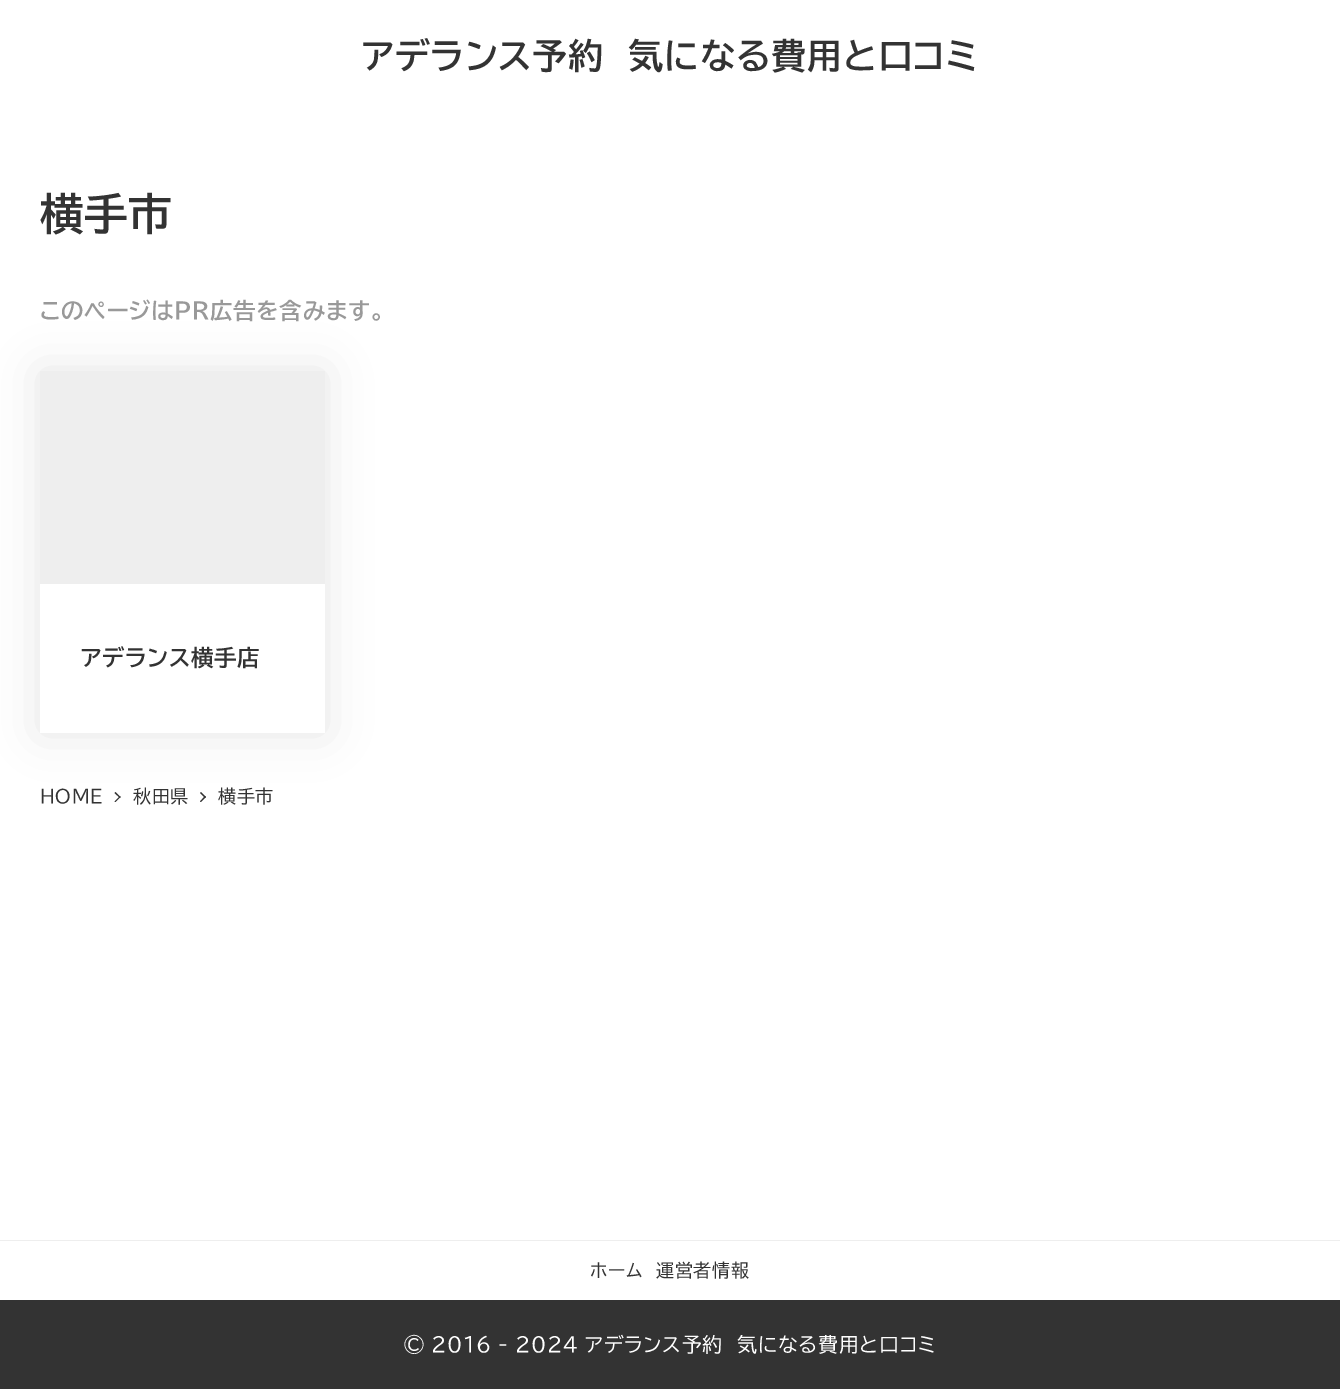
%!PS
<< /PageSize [1340 1389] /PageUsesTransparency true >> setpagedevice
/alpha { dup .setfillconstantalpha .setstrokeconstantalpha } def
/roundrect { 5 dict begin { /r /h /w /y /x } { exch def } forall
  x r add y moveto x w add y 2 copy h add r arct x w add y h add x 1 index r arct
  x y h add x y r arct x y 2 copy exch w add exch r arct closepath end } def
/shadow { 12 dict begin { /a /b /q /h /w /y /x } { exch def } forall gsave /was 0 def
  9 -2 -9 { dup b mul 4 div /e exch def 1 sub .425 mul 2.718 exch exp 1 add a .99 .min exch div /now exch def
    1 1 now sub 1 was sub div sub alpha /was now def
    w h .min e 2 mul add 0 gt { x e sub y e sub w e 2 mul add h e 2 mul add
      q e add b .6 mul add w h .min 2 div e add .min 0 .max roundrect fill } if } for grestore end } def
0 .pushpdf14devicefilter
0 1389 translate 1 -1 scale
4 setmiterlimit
1 setgray
0 0 1340 1389 rectfill
/BIZUDPGothic-Bold [35.25 0 0 -35.25 0 0] selectfont
0.2 setgray
362 69 moveto 0.7 0 (アデランス予約　気になる費用と口コミ) ashow
/BIZUDPGothic-Bold [43.5 0 0 -43.5 0 0] selectfont
40 230 moveto 0.7 0 (横手市) ashow
/BIZUDPGothic-Bold [22.5 0 0 -22.5 0 0] selectfont
0.6 setgray
40 319 moveto 0.7 0 (このページはPR広告を含みます。) ashow
gsave
newpath 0 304 moveto 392 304 lineto 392 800 lineto 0 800 lineto closepath 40 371 moveto 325 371 lineto 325 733 lineto 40 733 lineto closepath eoclip newpath
0 setgray
40 371 285 362 0 22 0.1 shadow
grestore
0.933 setgray
40 371 285 213 rectfill
0.2 setgray
81 666 moveto 0.7 0 (アデランス横手店) ashow
/BIZUDPGothic-Regular [18 0 0 -18 0 0] selectfont
40 803 moveto 0.7 0 (HOME) ashow
newpath 115.5 792 moveto 120.5 797 lineto 120 798 lineto 114.5 793 lineto closepath fill
newpath 120 796 moveto 120.5 797 lineto 115.5 802 lineto 114.5 801.5 lineto closepath fill
133 803 moveto 0.7 0 (秋田県) ashow
newpath 201 792 moveto 206 797 lineto 205 798 lineto 200 793 lineto closepath fill
newpath 205 796 moveto 206 797 lineto 201 802 lineto 200 801.5 lineto closepath fill
218 803 moveto 0.7 0 (横手市) ashow
0.933 setgray
0 1240 1340 1 rectfill
0.2 setgray
590 1277 moveto 0.7 0 (ホーム) ashow
656 1277 moveto 0.7 0 (運営者情報) ashow
0 1300 1340 89 rectfill
/BIZUDPGothic-Regular [20 0 0 -20 0 0] selectfont
1 setgray
404 1352 moveto 0.7 0 (©) ashow
431 1352 moveto 0.7 0 (2016) ashow
498 1352 moveto 0.7 0 (-) ashow
515 1352 moveto 0.7 0 (2024) ashow
585 1352 moveto 0.7 0 (アデランス予約　気になる費用と口コミ) ashow
.poppdf14devicefilter showpage
